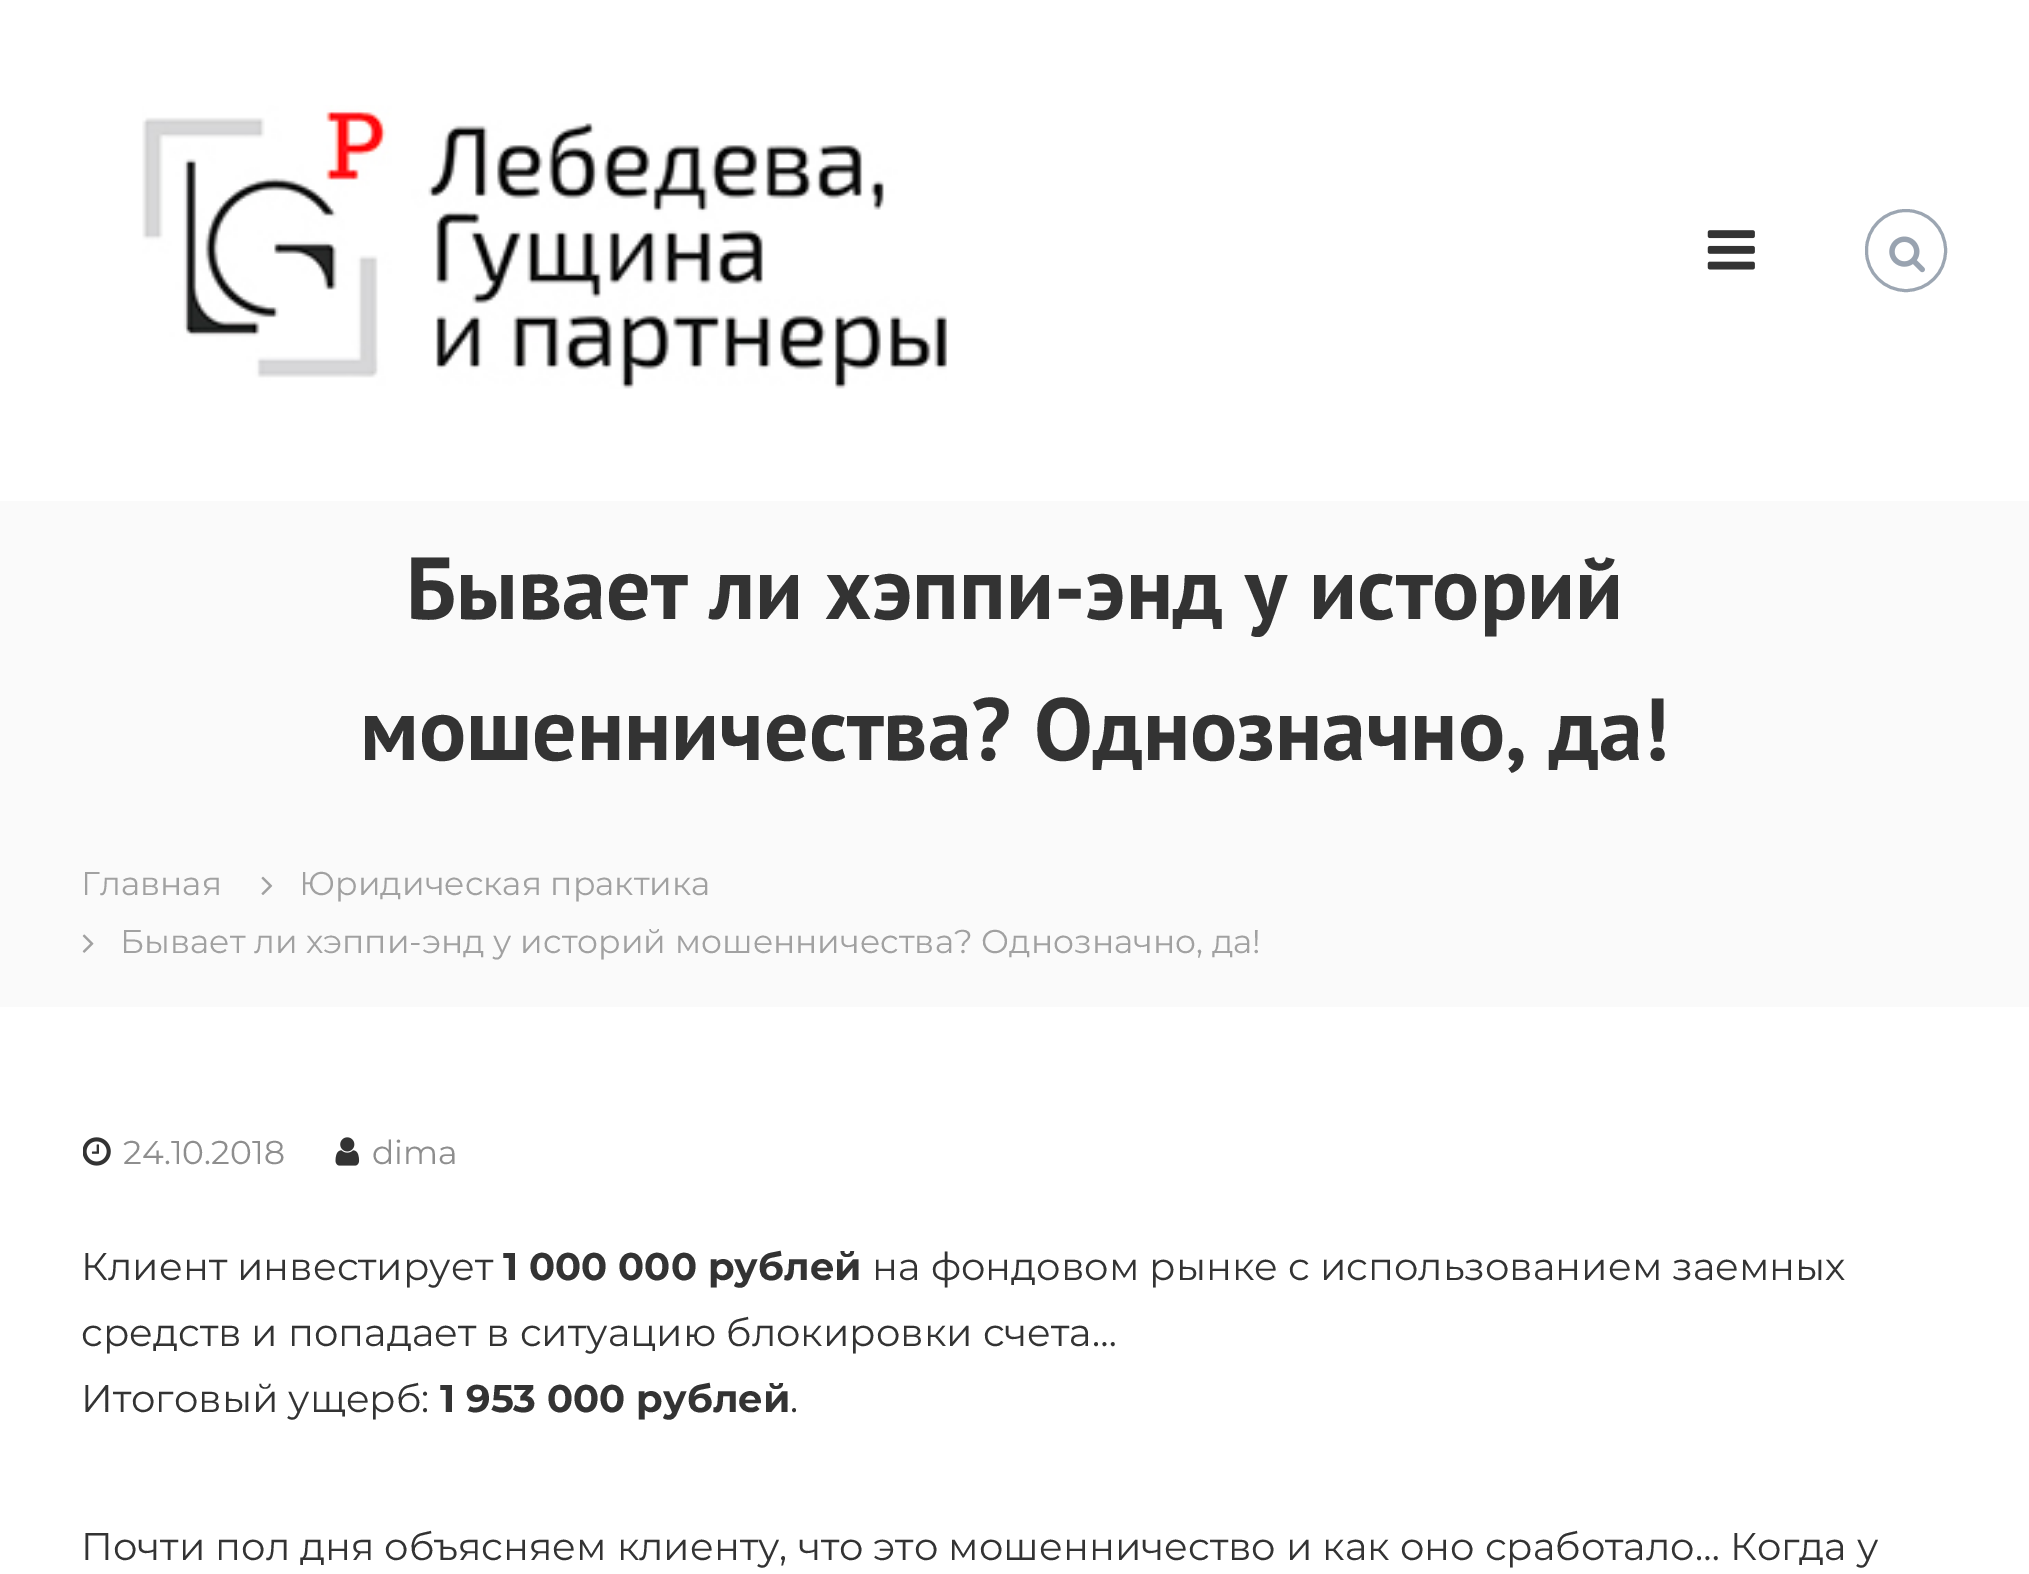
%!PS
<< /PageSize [2029 1574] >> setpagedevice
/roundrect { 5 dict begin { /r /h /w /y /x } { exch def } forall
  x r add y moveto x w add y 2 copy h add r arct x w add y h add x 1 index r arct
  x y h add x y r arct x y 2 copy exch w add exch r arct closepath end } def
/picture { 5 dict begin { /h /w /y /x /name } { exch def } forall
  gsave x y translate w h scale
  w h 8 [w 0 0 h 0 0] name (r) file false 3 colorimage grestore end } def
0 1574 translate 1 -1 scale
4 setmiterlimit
1 setgray
0 0 2029 1574 rectfill
(img1.rgb) 142 105 805 284 picture
(img2.rgb) 1707 230 48 40 picture
0.612 0.651 0.698 setrgbcolor
3 setlinewidth
1866.5 210.5 79 80 39.5 roundrect stroke
(img3.rgb) 1889 236 36 37 picture
0.98 setgray
0 501 2029 506 rectfill
/PTSans-Bold [88 0 0 -88 0 0] selectfont
0.2 setgray
406 619 moveto (Бывает ли хэппи-энд у историй) show
360 760 moveto (мошенничества? Однозначно, да!) show
/Montserrat-Regular [33 0 0 -33 0 0] selectfont
0.631 setgray
81 895 moveto (Главная) show
(img4.rgb) 261 876 12 19 picture
299 895 moveto (Юридическая практика) show
(img5.rgb) 82 934 12 19 picture
120 953 moveto (Бывает ли хэппи-энд у историй мошенничества? Однозначно, да!) show
(img6.rgb) 83 1137 28 29 picture
0.557 setgray
123 1164 moveto (24.10.2018) show
(img7.rgb) 335 1137 25 29 picture
372 1164 moveto (dima) show
/Montserrat-Regular [38.5 0 0 -38.5 0 0] selectfont
0.2 setgray
81 1280 moveto (Клиент инвестирует) show
/Montserrat-Bold [38.5 0 0 -38.5 0 0] selectfont
503 1280 moveto (1 000 000 рублей) show
/Montserrat-Regular [38.5 0 0 -38.5 0 0] selectfont
872 1280 moveto (на фондовом рынке с использованием заемных) show
81 1346 moveto (средств и попадает в ситуацию блокировки счета…) show
81 1412 moveto (Итоговый ущерб:) show
/Montserrat-Bold [38.5 0 0 -38.5 0 0] selectfont
440 1412 moveto (1 953 000 рублей) show
/Montserrat-Regular [38.5 0 0 -38.5 0 0] selectfont
790 1412 moveto (.) show
81 1560 moveto (Почти пол дня объясняем клиенту, что это мошенничество и как оно сработало… Когда у) show
showpage
